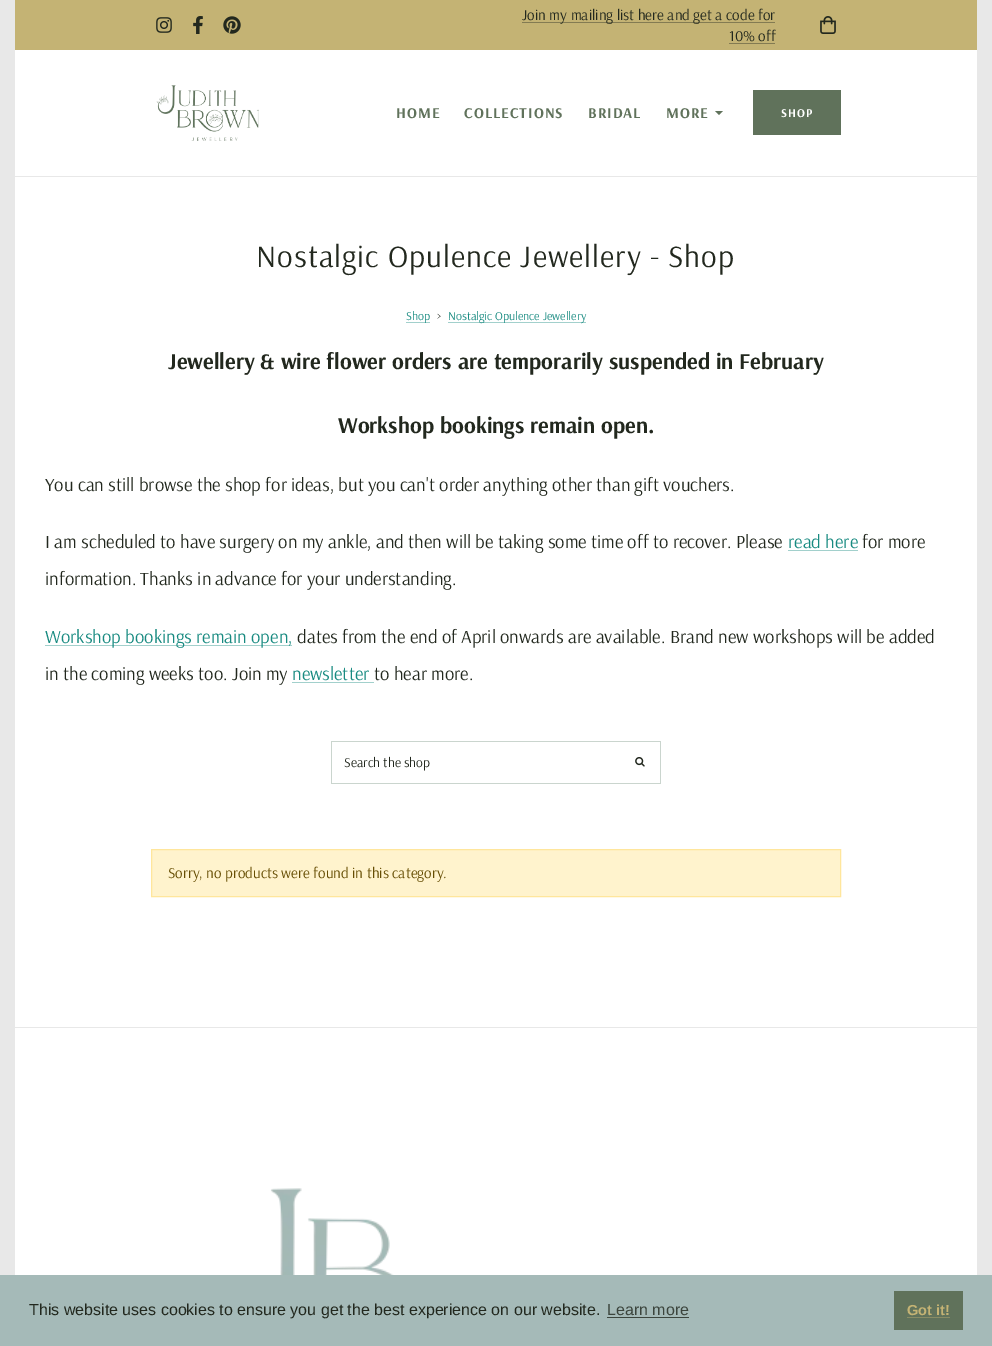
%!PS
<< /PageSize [992 1346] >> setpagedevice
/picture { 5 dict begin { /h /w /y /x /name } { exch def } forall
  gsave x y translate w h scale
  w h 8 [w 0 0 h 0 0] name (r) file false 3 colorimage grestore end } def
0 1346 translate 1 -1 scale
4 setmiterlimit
0.91 setgray
0 0 992 1346 rectfill
1 setgray
15 50 962 126 rectfill
0.769 0.702 0.455 setrgbcolor
15 0 962 50 rectfill
(img1.rgb) 156 17 16 16 picture
(img2.rgb) 193 16 10 18 picture
(img3.rgb) 223 16 18 18 picture
0.514 0.482 0.322 setrgbcolor
522 22 253 1 rectfill
/Arsenal-Regular [15 0 0 -15 0 0] selectfont
0.133 0.157 0.118 setrgbcolor
522 20 moveto (Join my mailing list here and get a code for) show
729 41 moveto (10% off) show
0.514 0.482 0.322 setrgbcolor
729 43 46 1 rectfill
(img4.rgb) 820 16 16 18 picture
(img5.rgb) 156 85 103 56 picture
/Arsenal-Bold [15 0 0 -15 0 0] selectfont
0.376 0.447 0.357 setrgbcolor
396 118 moveto 1 0 (HOME) ashow
464 118 moveto 1 0 (COLLECTIONS) ashow
588 118 moveto 1 0 (BRIDAL) ashow
666 118 moveto 1 0 (MORE) ashow
newpath 715 111 moveto 723 111 lineto 719 115 lineto closepath fill
753 90 88 45 rectfill
/Arsenal-Bold [12 0 0 -12 0 0] selectfont
1 setgray
781 117 moveto 1 0 (SHOP) ashow
15 177 962 850 rectfill
/Arsenal-Regular [31.1 0 0 -31.1 0 0] selectfont
0.133 0.157 0.118 setrgbcolor
256 267 moveto 1 0 (Nostalgic Opulence Jewellery - Shop) ashow
0.635 0.816 0.8 setrgbcolor
406 322 24 1 rectfill
/Arsenal-Regular [12 0 0 -12 0 0] selectfont
0.09 0.541 0.502 setrgbcolor
406 320 moveto (Shop) show
0.133 0.157 0.118 setrgbcolor
437 320 moveto (>) show
0.635 0.816 0.8 setrgbcolor
448 322 138 1 rectfill
0.09 0.541 0.502 setrgbcolor
448 320 moveto (Nostalgic Opulence Jewellery) show
/Arsenal-Bold [22.5 0 0 -22.5 0 0] selectfont
0.133 0.157 0.118 setrgbcolor
168 369 moveto (Jewellery & wire flower orders are temporarily suspended in February) show
338 433 moveto (Workshop bookings remain open.) show
/Arsenal-Regular [18.65 0 0 -18.65 0 0] selectfont
45 491 moveto (You can still browse the shop for ideas, but you can't order anything other than gift vouchers.) show
45 548 moveto (I am scheduled to have surgery on my ankle, and then will be taking some time off to recover. Please) show
0.09 0.541 0.502 setrgbcolor
788 548 moveto (read here) show
0.635 0.816 0.8 setrgbcolor
788 550 70 1 rectfill
0.133 0.157 0.118 setrgbcolor
862 548 moveto (for more) show
45 585 moveto (information. Thanks in advance for your understanding.) show
0.635 0.816 0.8 setrgbcolor
45 645 247 1 rectfill
0.09 0.541 0.502 setrgbcolor
45 643 moveto (Workshop bookings remain open,) show
0.133 0.157 0.118 setrgbcolor
297 643 moveto (dates from the end of April onwards are available. Brand new workshops will be added) show
45 680 moveto (in the coming weeks too. Join my) show
0.635 0.816 0.8 setrgbcolor
292 682 82 1 rectfill
0.09 0.541 0.502 setrgbcolor
292 680 moveto (newsletter) show
0.133 0.157 0.118 setrgbcolor
374 680 moveto (to hear more.) show
0.792 0.835 0.808 setrgbcolor
331 741 330 1 rectfill
331 783 290 1 rectfill
331 741 1 43 rectfill
/Arsenal-Regular [13.5 0 0 -13.5 0 0] selectfont
0.133 0.157 0.118 setrgbcolor
344 767 moveto (Search the shop) show
0.792 0.835 0.808 setrgbcolor
660 741 1 43 rectfill
621 783 40 1 rectfill
(img6.rgb) 635 757 10 10 picture
1 0.953 0.804 setrgbcolor
newpath 151.5 849.5 moveto 840.5 849.5 lineto 840.5 896.5 lineto 151.5 896.5 lineto closepath gsave fill grestore
1 0.902 0.612 setrgbcolor
stroke
/Arsenal-Regular [15 0 0 -15 0 0] selectfont
0.4 0.302 0.012 setrgbcolor
168 878 moveto (Sorry, no products were found in this category.) show
1 setgray
15 1028 962 247 rectfill
(img7.rgb) 270 1188 124 87 picture
0.647 0.729 0.722 setrgbcolor
0 1275 992 71 rectfill
/LiberationSans-Regular [16 0 0 -16 0 0] selectfont
0.133 0.157 0.118 setrgbcolor
29 1315 moveto (This website uses cookies to ensure you get the best experience on our website.) show
0.235 0.271 0.239 setrgbcolor
607 1315 moveto (Learn more) show
607 1317 82 1 rectfill
0.376 0.447 0.357 setrgbcolor
894 1291 69 39 rectfill
/LiberationSans-Bold [14.5 0 0 -14.5 0 0] selectfont
0.769 0.702 0.455 setrgbcolor
907 1315 moveto (Got it!) show
0.533 0.549 0.396 setrgbcolor
907 1317 43 1 rectfill
showpage
